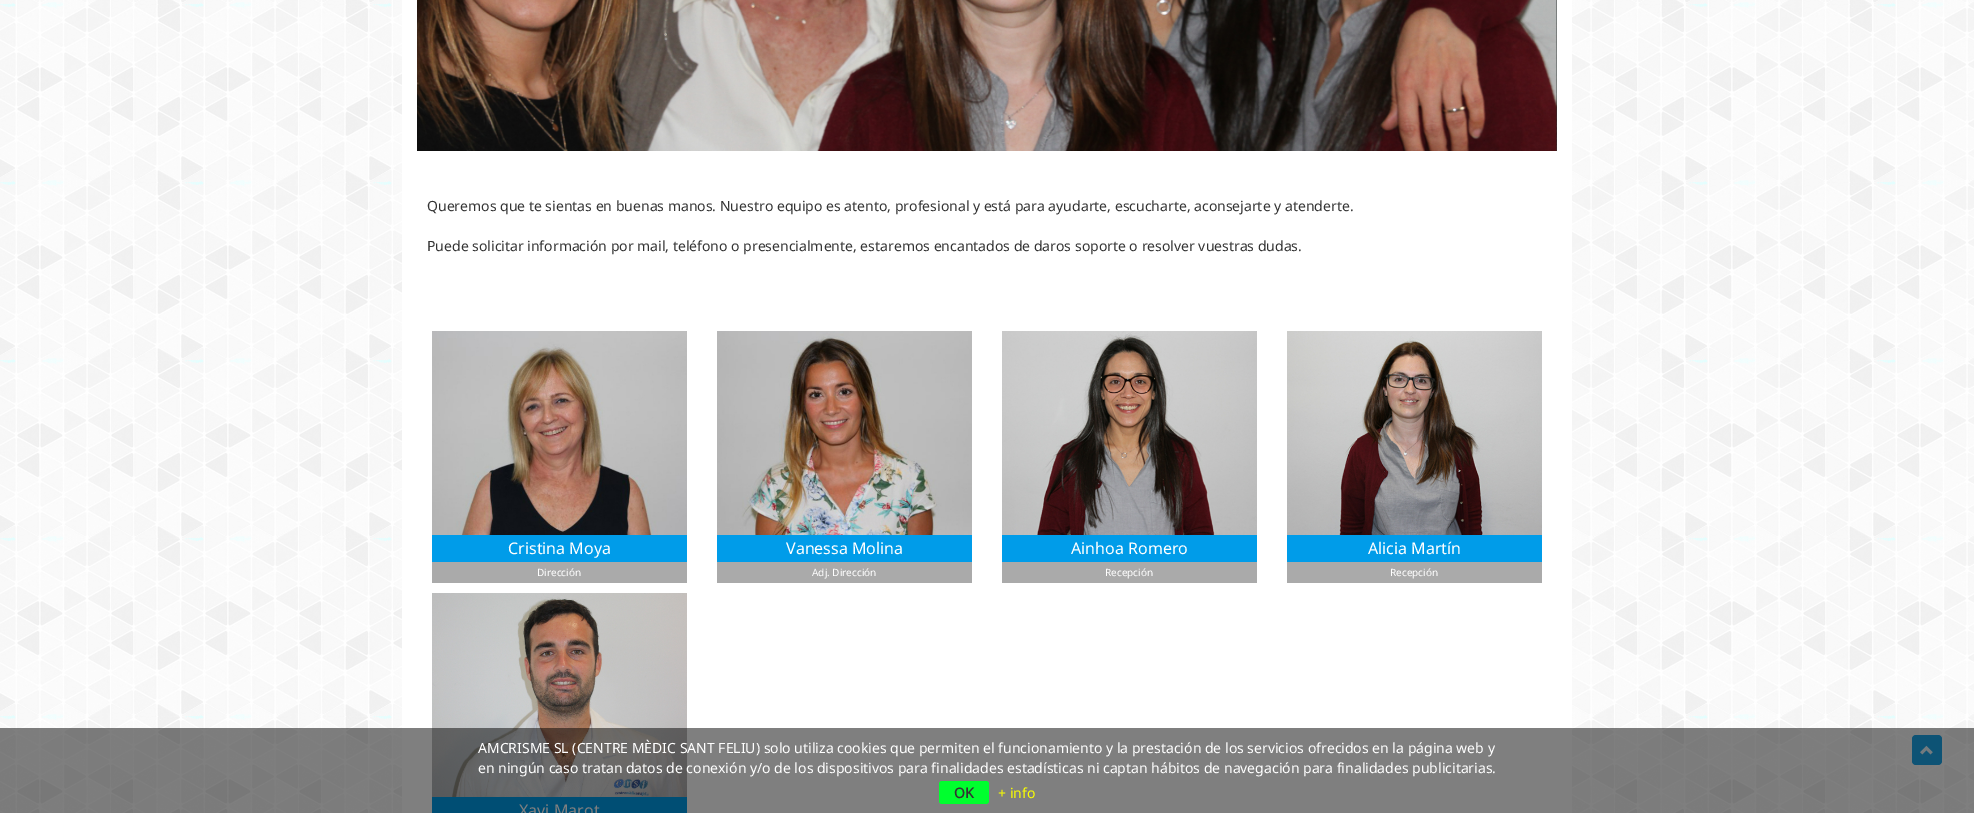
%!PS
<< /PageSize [1974 813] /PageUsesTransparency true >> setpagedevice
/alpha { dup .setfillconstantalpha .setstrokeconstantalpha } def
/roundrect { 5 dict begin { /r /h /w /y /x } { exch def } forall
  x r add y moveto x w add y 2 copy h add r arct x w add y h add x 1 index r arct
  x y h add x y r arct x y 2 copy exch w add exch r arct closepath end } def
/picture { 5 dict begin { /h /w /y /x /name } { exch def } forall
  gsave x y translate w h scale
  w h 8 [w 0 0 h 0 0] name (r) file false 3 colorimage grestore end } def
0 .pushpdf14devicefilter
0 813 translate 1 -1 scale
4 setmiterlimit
1 setgray
0 0 1974 813 rectfill
(img1.rgb) 0 0 1974 813 picture
402 0 1170 813 rectfill
(img2.rgb) 417 0 1140 151 picture
/NotoSans-Regular [14 0 0 -14 0 0] selectfont
0.2 setgray
427 211 moveto (Queremos que te sientas en buenas manos. Nuestro equipo es atento, profesional y está para ayudarte, escucharte, aconsejarte y atenderte.) show
427 251 moveto (Puede solicitar información por mail, teléfono o presencialmente, estaremos encantados de daros soporte o resolver vuestras dudas.) show
(img3.rgb) 432 331 255 204 picture
0 0.612 0.914 setrgbcolor
432 535 255 27 rectfill
/NotoSans-Regular [16 0 0 -16 0 0] selectfont
1 setgray
508 554 moveto (Cristina Moya) show
0.667 setgray
432 562 255 21 rectfill
/NotoSans-Regular [10 0 0 -10 0 0] selectfont
1 setgray
537 576 moveto (Dirección) show
(img4.rgb) 717 331 255 204 picture
0 0.612 0.914 setrgbcolor
717 535 255 27 rectfill
/NotoSans-Regular [16 0 0 -16 0 0] selectfont
1 setgray
786 554 moveto (Vanessa Molina) show
0.667 setgray
717 562 255 21 rectfill
/NotoSans-Regular [10 0 0 -10 0 0] selectfont
1 setgray
812 576 moveto (Adj. Dirección) show
(img5.rgb) 1002 331 255 204 picture
0 0.612 0.914 setrgbcolor
1002 535 255 27 rectfill
/NotoSans-Regular [16 0 0 -16 0 0] selectfont
1 setgray
1071 554 moveto (Ainhoa Romero) show
0.667 setgray
1002 562 255 21 rectfill
/NotoSans-Regular [10 0 0 -10 0 0] selectfont
1 setgray
1105 576 moveto (Recepción) show
(img6.rgb) 1287 331 255 204 picture
0 0.612 0.914 setrgbcolor
1287 535 255 27 rectfill
/NotoSans-Regular [16 0 0 -16 0 0] selectfont
1 setgray
1368 554 moveto (Alicia Martín) show
0.667 setgray
1287 562 255 21 rectfill
/NotoSans-Regular [10 0 0 -10 0 0] selectfont
1 setgray
1390 576 moveto (Recepción) show
(img7.rgb) 432 593 255 204 picture
0 0.612 0.914 setrgbcolor
432 797 255 16 rectfill
/NotoSans-Regular [16 0 0 -16 0 0] selectfont
1 setgray
519 816 moveto (Xavi Marot) show
0.89 alpha
0 0.612 0.914 setrgbcolor
1912 735 30 30 4 roundrect fill
1 alpha
(img8.rgb) 1920 745 13 10 picture
0.5 alpha
0 setgray
0 728 1974 85 rectfill
/NotoSans-Regular [14 0 0 -14 0 0] selectfont
1 alpha
1 setgray
478 753 moveto (AMCRISME SL \(CENTRE MÈDIC SANT FELIU\) solo utiliza cookies que permiten el funcionamiento y la prestación de los servicios ofrecidos en la página web y) show
478 773 moveto (en ningún caso tratan datos de conexión y/o de los dispositivos para finalidades estadísticas ni captan hábitos de navegación para finalidades publicitarias.) show
0 1 0.18 setrgbcolor
939 781 50 23 3 roundrect fill
/NotoSans-Bold [14 0 0 -14 0 0] selectfont
0.2 setgray
954 798 moveto (OK) show
/NotoSans-Regular [14 0 0 -14 0 0] selectfont
0.98 1 0 setrgbcolor
998 798 moveto (+ info) show
.poppdf14devicefilter showpage
